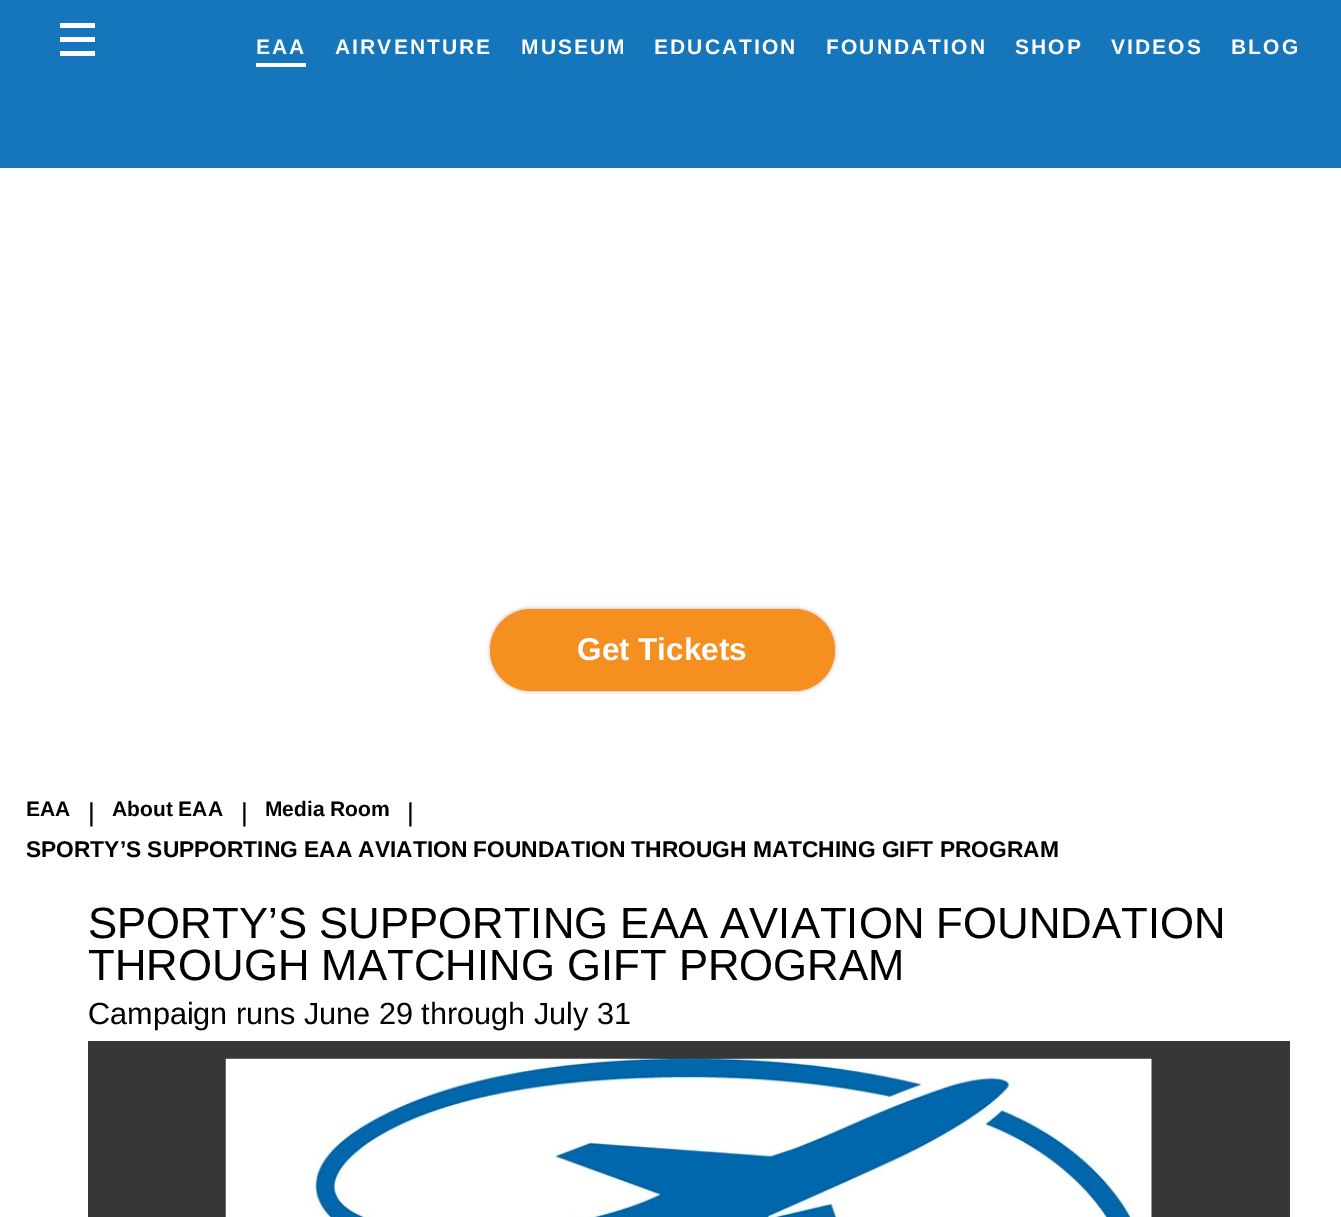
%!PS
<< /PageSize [1341 1217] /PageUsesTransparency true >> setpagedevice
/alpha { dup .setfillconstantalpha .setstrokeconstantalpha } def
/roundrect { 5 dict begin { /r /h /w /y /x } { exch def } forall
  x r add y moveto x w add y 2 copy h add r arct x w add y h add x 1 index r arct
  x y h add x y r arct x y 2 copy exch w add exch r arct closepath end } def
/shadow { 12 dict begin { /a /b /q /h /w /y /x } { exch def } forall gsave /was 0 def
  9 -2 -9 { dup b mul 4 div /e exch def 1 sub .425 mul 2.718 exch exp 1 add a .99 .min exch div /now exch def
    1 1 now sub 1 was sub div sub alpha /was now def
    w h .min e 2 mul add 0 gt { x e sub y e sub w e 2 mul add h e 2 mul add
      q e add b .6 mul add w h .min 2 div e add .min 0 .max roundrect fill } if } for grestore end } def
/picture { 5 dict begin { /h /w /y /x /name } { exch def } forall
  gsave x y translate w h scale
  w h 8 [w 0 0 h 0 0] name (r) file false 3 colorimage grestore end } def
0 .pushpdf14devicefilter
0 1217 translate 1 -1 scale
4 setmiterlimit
1 setgray
0 0 1341 1217 rectfill
0.086 0.463 0.737 setrgbcolor
0 0 1341 168 rectfill
1 setgray
60 23 35 5 rectfill
60 37 35 5 rectfill
60 51 35 5 rectfill
/LiberationSans-Bold [21 0 0 -21 0 0] selectfont
256 54 moveto 2.1 0 (EAA) ashow
256 63 50 4 rectfill
335 54 moveto 2.1 0 (AIRVENTURE) ashow
521 54 moveto 2.1 0 (MUSEUM) ashow
654 54 moveto 2.1 0 (EDUCATION) ashow
826 54 moveto 2.1 0 (FOUNDATION) ashow
1015 54 moveto 2.1 0 (SHOP) ashow
1111 54 moveto 2.1 0 (VIDEOS) ashow
1231 54 moveto 2.1 0 (BLOG) ashow
0.588 0.039 0.039 setrgbcolor
490 609 345 82 41 2 0.4 shadow
0.957 0.561 0.125 setrgbcolor
490 609 345 82 41 roundrect fill
/LiberationSans-Bold [31.5 0 0 -31.5 0 0] selectfont
1 setgray
577 660 moveto (Get Tickets) show
/LiberationSans-Bold [21 0 0 -21 0 0] selectfont
0 setgray
26 816 moveto (EAA) show
/LiberationSans-Regular [26 0 0 -26 0 0] selectfont
88 821 moveto (|) show
/LiberationSans-Bold [21 0 0 -21 0 0] selectfont
112 816 moveto (About EAA) show
/LiberationSans-Regular [26 0 0 -26 0 0] selectfont
241 821 moveto (|) show
/LiberationSans-Bold [21 0 0 -21 0 0] selectfont
265 816 moveto (Media Room) show
/LiberationSans-Regular [26 0 0 -26 0 0] selectfont
407 821 moveto (|) show
/LiberationSans-Bold [22.75 0 0 -22.75 0 0] selectfont
26 857 moveto (SPORTY’S SUPPORTING EAA AVIATION FOUNDATION THROUGH MATCHING GIFT PROGRAM) show
/LiberationSans-Regular [43.75 0 0 -43.75 0 0] selectfont
88 938 moveto (SPORTY’S SUPPORTING EAA AVIATION FOUNDATION) show
88 980 moveto (THROUGH MATCHING GIFT PROGRAM) show
/LiberationSans-Regular [30.6 0 0 -30.6 0 0] selectfont
88 1024 moveto (Campaign runs June 29 through July 31) show
0.216 setgray
88 1041 1202 176 rectfill
(img1.rgb) 225 1058 927 159 picture
.poppdf14devicefilter showpage
